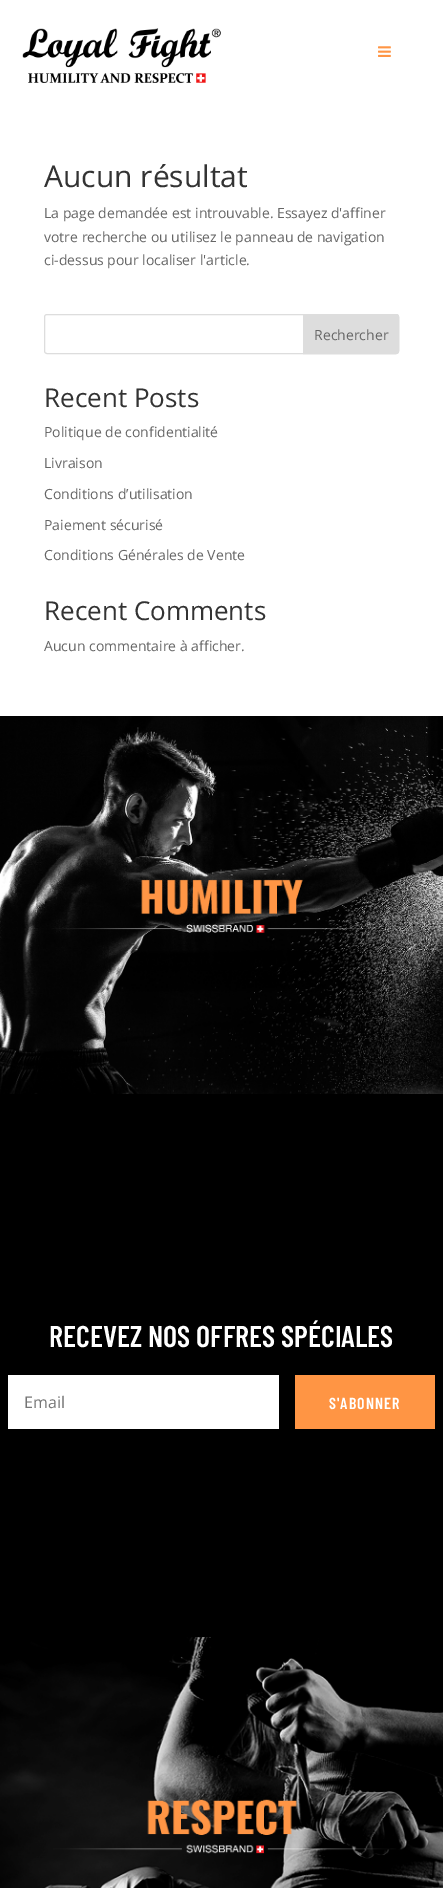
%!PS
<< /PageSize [443 1888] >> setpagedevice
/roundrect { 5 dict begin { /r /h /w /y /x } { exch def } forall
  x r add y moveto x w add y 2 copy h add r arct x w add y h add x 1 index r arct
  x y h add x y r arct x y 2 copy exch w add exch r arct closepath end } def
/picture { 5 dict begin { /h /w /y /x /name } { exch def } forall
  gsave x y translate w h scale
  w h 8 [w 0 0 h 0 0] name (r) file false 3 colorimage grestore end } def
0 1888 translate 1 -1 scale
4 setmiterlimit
1 setgray
0 0 443 1888 rectfill
(img1.rgb) 22 28 199 55 picture
(img2.rgb) 378 46 13 11 picture
/OpenSans-Regular [30 0 0 -30 0 0] selectfont
0.2 setgray
44 187 moveto (Aucun résultat) show
/OpenSans-Regular [14 0 0 -14 0 0] selectfont
0.4 setgray
44 218 moveto (La page demandée est introuvable. Essayez d'affiner) show
44 242 moveto (votre recherche ou utilisez le panneau de navigation) show
44 265 moveto (ci-dessus pour localiser l'article.) show
0.867 setgray
44.5 314.5 354 39 2.5 roundrect stroke
newpath 303.5 314.5 moveto 396 314.5 lineto 397.5 314.5 398.5 315.5 398.5 317 curveto 398.5 351 lineto 398.5 352.5 397.5 353.5 396 353.5 curveto 303.5 353.5 lineto closepath gsave fill grestore
stroke
0.4 setgray
314 340 moveto (Rechercher) show
/OpenSans-Regular [26 0 0 -26 0 0] selectfont
0.2 setgray
44 407 moveto (Recent Posts) show
/OpenSans-Regular [14 0 0 -14 0 0] selectfont
0.4 setgray
44 437 moveto (Politique de confidentialité) show
44 468 moveto (Livraison) show
44 499 moveto (Conditions d’utilisation) show
44 530 moveto (Paiement sécurisé) show
44 560 moveto (Conditions Générales de Vente) show
/OpenSans-Regular [26 0 0 -26 0 0] selectfont
0.2 setgray
44 620 moveto (Recent Comments) show
/OpenSans-Regular [14 0 0 -14 0 0] selectfont
0.4 setgray
44 651 moveto (Aucun commentaire à afficher.) show
(img3.rgb) 0 716 443 378 picture
0 setgray
0 1094 443 543 rectfill
/BarlowCondensed-SemiBold [30 0 0 -30 0 0] selectfont
1 setgray
49 1347 moveto (RECEVEZ NOS OFFRES SPÉCIALES) show
8 1375 271 54 rectfill
/OpenSans-Regular [16 0 0 -16 0 0] selectfont
0.459 setgray
24 1408 moveto (Email) show
1 0.584 0.267 setrgbcolor
295 1375 140 54 rectfill
/BarlowCondensed-SemiBold [16 0 0 -16 0 0] selectfont
1 setgray
329 1409 moveto 1 0 (S'ABONNER) ashow
(img4.rgb) 0 1637 443 251 picture
showpage
